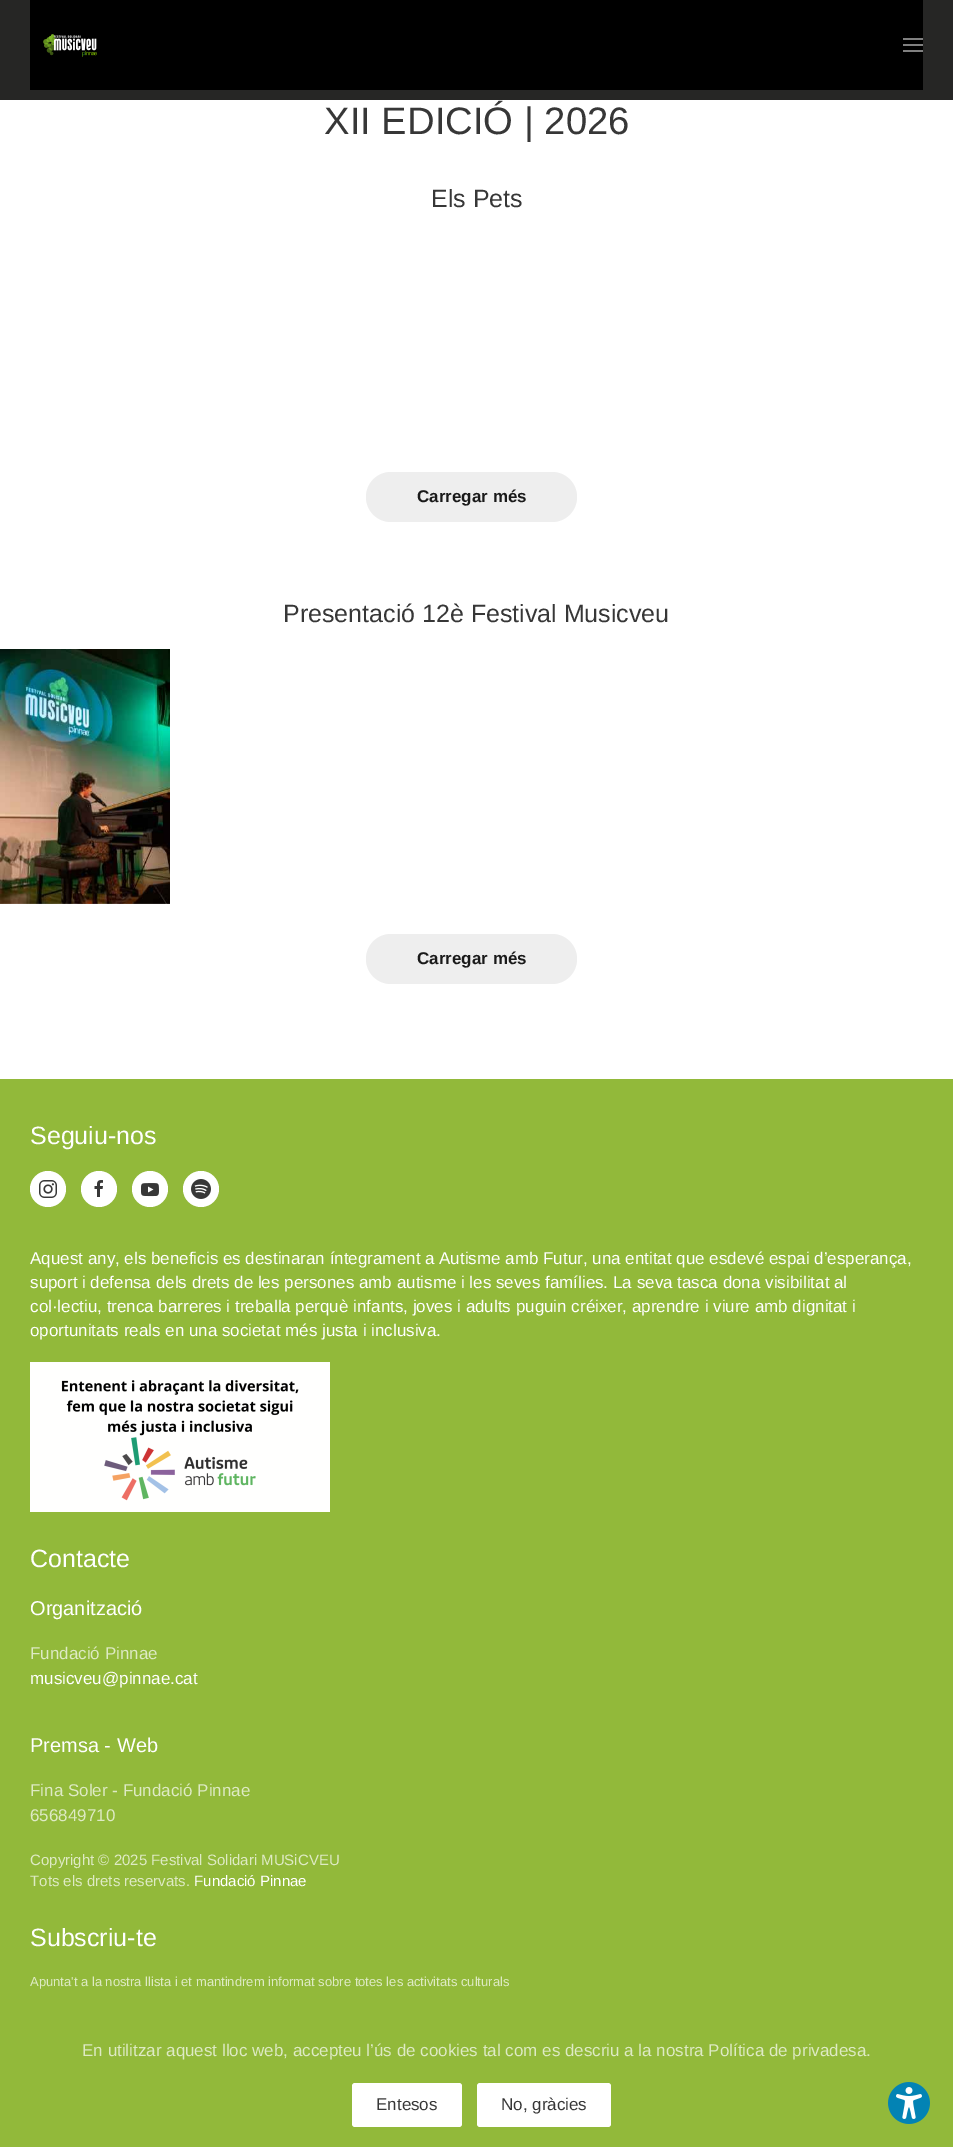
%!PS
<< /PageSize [953 2147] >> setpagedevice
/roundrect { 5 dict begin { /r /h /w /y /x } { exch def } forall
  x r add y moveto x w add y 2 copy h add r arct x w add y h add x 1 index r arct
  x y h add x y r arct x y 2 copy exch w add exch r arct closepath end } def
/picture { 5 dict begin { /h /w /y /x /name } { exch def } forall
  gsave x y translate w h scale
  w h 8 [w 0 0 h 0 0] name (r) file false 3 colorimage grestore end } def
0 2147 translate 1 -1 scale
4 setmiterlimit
1 setgray
0 0 953 2147 rectfill
0.149 0.149 0.145 setrgbcolor
0 0 953 100 rectfill
0 setgray
30 0 893 90 rectfill
(img1.rgb) 43 34 54 23 picture
0.502 setgray
903 38 20 2 rectfill
903 44 20 2 rectfill
903 50 20 2 rectfill
/LiberationSans-Regular [38.25 0 0 -38.25 0 0] selectfont
0.216 setgray
324 134 moveto (XII EDICIÓ | 2026) show
/LiberationSans-Regular [25 0 0 -25 0 0] selectfont
431 207 moveto (Els Pets) show
0.933 setgray
366 472 211 50 25 roundrect fill
/LiberationSans-Bold [17 0 0 -17 0 0] selectfont
0.102 setgray
417 502 moveto (Carregar més) show
/LiberationSans-Regular [25 0 0 -25 0 0] selectfont
0.216 setgray
283 622 moveto (Presentació 12è Festival Musicveu) show
(img2.rgb) 0 649 170 255 picture
0.933 setgray
366 934 211 50 25 roundrect fill
/LiberationSans-Bold [17 0 0 -17 0 0] selectfont
0.102 setgray
417 964 moveto (Carregar més) show
0.573 0.725 0.227 setrgbcolor
0 1079 953 1068 rectfill
/LiberationSans-Regular [25 0 0 -25 0 0] selectfont
1 setgray
30 1144 moveto (Seguiu-nos) show
newpath 48 1189 18 0 360 arc closepath fill
(img3.rgb) 39 1180 18 18 picture
newpath 99 1189 18 0 360 arc closepath fill
(img4.rgb) 94 1180 9 17 picture
newpath 150 1189 18 0 360 arc closepath fill
(img5.rgb) 141 1183 18 14 picture
newpath 201 1189 18 0 360 arc closepath fill
(img6.rgb) 191 1179 20 20 picture
/LiberationSans-Regular [17 0 0 -17 0 0] selectfont
30 1264 moveto (Aquest any, els beneficis es destinaran íntegrament a Autisme amb Futur, una entitat que esdevé espai d’esperança,) show
30 1288 moveto (suport i defensa dels drets de les persones amb autisme i les seves famílies. La seva tasca dona visibilitat al) show
30 1312 moveto (col·lectiu, trenca barreres i treballa perquè infants, joves i adults puguin créixer, aprendre i viure amb dignitat i) show
30 1336 moveto (oportunitats reals en una societat més justa i inclusiva.) show
(img7.rgb) 30 1362 300 150 picture
/LiberationSans-Regular [25 0 0 -25 0 0] selectfont
30 1567 moveto (Contacte) show
/LiberationSans-Regular [20 0 0 -20 0 0] selectfont
30 1615 moveto (Organització) show
/LiberationSans-Regular [17 0 0 -17 0 0] selectfont
0.871 0.918 0.769 setrgbcolor
30 1659 moveto (Fundació Pinnae) show
1 setgray
30 1684 moveto (musicveu@pinnae.cat) show
/LiberationSans-Regular [20 0 0 -20 0 0] selectfont
30 1752 moveto (Premsa - Web) show
/LiberationSans-Regular [17 0 0 -17 0 0] selectfont
0.871 0.918 0.769 setrgbcolor
30 1796 moveto (Fina Soler - Fundació Pinnae) show
30 1821 moveto (656849710) show
/LiberationSans-Regular [15 0 0 -15 0 0] selectfont
30 1865 moveto (Copyright © 2025 Festival Solidari MUSiCVEU) show
30 1886 moveto (Tots els drets reservats.) show
1 setgray
194 1886 moveto (Fundació Pinnae) show
/LiberationSans-Regular [25 0 0 -25 0 0] selectfont
30 1946 moveto (Subscriu-te) show
/LiberationSans-Regular [13 0 0 -13 0 0] selectfont
0.871 0.918 0.769 setrgbcolor
30 1986 moveto (Apunta't a la nostra llista i et mantindrem informat sobre totes les activitats culturals) show
/LiberationSans-Regular [17 0 0 -17 0 0] selectfont
82 2056 moveto (En utilitzar aquest lloc web, accepteu l’ús de cookies tal com es descriu a la nostra Política de privadesa.) show
1 setgray
352 2083 110 44 3 roundrect fill
0.216 setgray
376 2110 moveto (Entesos) show
1 setgray
477 2083 134 44 3 roundrect fill
0.216 setgray
501 2110 moveto (No, gràcies) show
(img8.rgb) 888 2082 42 42 picture
showpage
